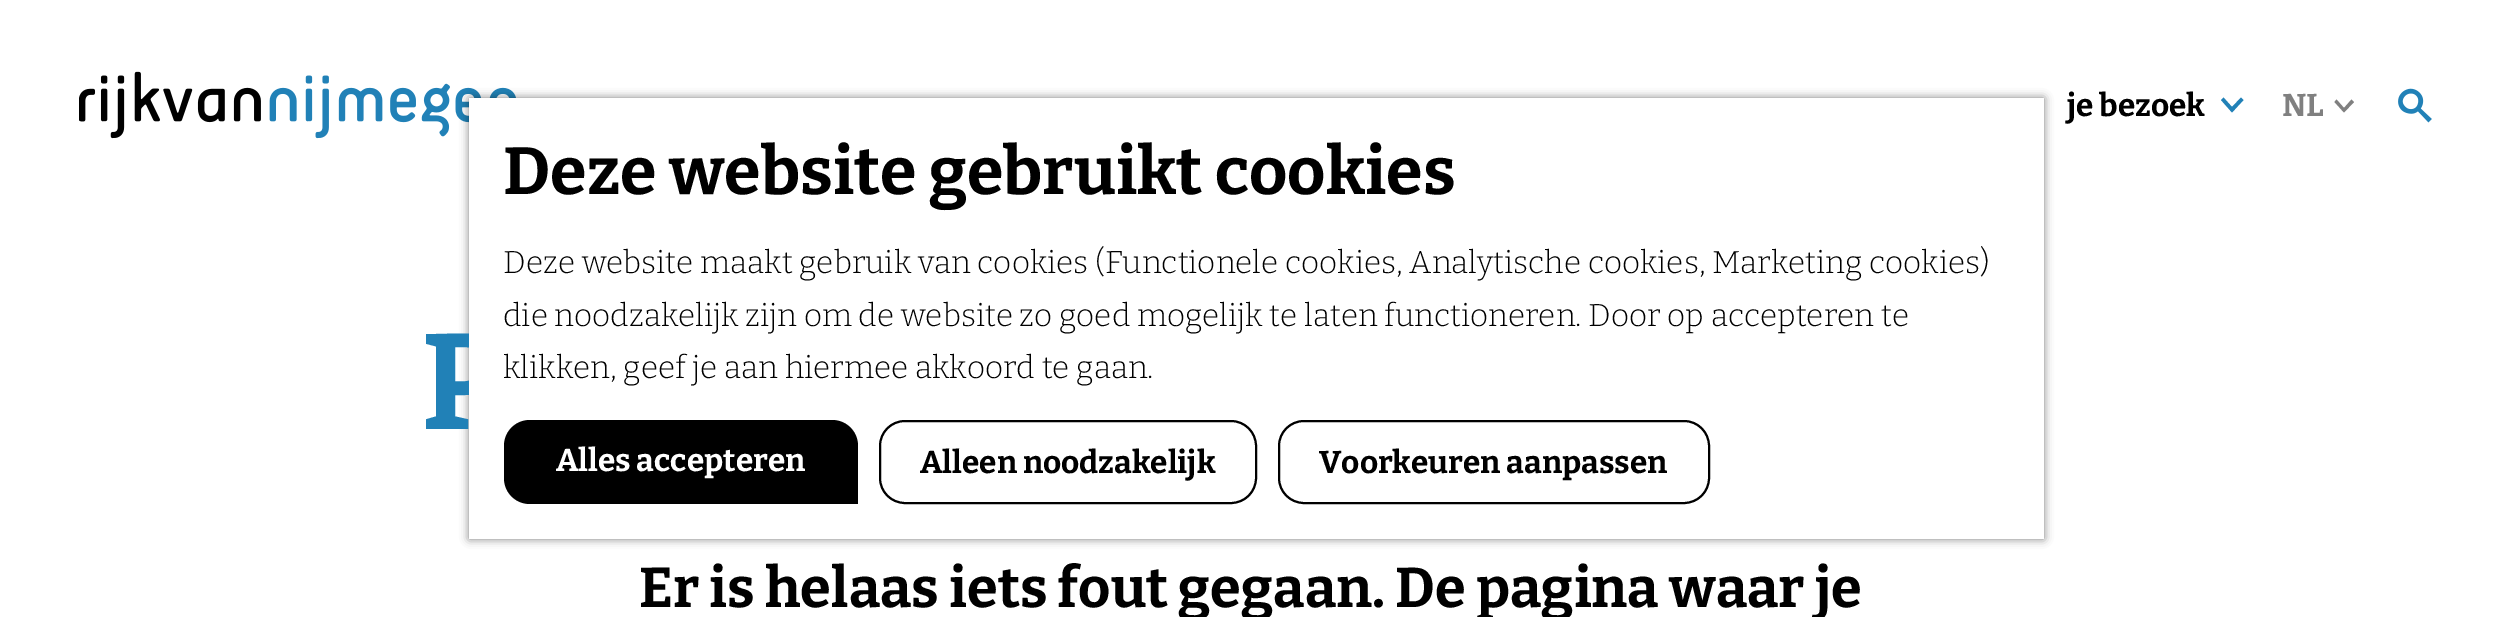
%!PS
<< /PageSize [2510 617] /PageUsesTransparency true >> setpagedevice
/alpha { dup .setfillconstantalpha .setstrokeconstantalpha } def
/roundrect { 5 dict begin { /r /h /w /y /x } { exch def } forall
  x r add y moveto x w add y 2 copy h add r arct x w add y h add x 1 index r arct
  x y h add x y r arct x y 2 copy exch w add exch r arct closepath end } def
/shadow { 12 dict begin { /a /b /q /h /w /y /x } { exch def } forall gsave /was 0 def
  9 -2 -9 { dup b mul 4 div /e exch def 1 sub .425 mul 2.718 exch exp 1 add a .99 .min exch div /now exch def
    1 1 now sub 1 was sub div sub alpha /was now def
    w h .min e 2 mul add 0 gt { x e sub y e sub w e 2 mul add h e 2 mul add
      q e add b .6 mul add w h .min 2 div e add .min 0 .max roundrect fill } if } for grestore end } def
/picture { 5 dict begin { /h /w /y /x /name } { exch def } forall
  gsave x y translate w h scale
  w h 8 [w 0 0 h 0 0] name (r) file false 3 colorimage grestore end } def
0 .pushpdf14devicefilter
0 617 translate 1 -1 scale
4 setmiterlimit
1 setgray
0 0 2510 617 rectfill
(img1.rgb) 79 71 437 68 picture
/Bitter-Thin [31.5 0 0 -31.5 0 0] selectfont
0 setgray
2067 116 moveto (je bezoek) show
0.129 0.506 0.718 setrgbcolor
newpath 2241 97.5 moveto 2232 107 lineto 2223.5 97.5 lineto 2221 100 lineto 2232 112.5 lineto 2243.5 100 lineto closepath fill
0.502 setgray
2282 116 moveto (NL) show
newpath 2351.5 99.5 moveto 2344 108 lineto 2336.5 99.5 lineto 2334.5 102 lineto 2344 112.5 lineto 2354 102 lineto closepath fill
(img2.rgb) 2398 88 34 35 picture
0 setgray
469 98 1575 441 0 4.5 0.5 shadow
/Bitter-Thin [136 0 0 -136 0 0] selectfont
0.129 0.506 0.718 setrgbcolor
421 429 moveto (P) show
1 setgray
469 98 1575 441 rectfill
/Bitter-Thin [66.5 0 0 -66.5 0 0] selectfont
0 setgray
503 194 moveto (Deze website gebruikt cookies) show
/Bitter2-Thin [31.5 0 0 -31.5 0 0] selectfont
503 273 moveto (Deze website maakt gebruik van cookies \(Functionele cookies, Analytische cookies, Marketing cookies\)) show
503 326 moveto (die noodzakelijk zijn om de website zo goed mogelijk te laten functioneren. Door op accepteren te) show
503 378 moveto (klikken, geef je aan hiermee akkoord te gaan.) show
newpath 530 420 moveto 832 420 lineto 846.5 420 858 431.5 858 446 curveto 858 504 lineto 530 504 lineto 515.5 504 504 492.5 504 478 curveto 504 446 lineto 504 431.5 515.5 420 530 420 curveto closepath fill
/Bitter-Thin [31.5 0 0 -31.5 0 0] selectfont
1 setgray
556 471 moveto (Alles accepteren) show
0 setgray
2 setlinewidth
880 421 376 82 25 roundrect stroke
920 473 moveto (Alleen noodzakelijk) show
1279 421 430 82 25 roundrect stroke
1319 473 moveto (Voorkeuren aanpassen) show
/Bitter-Thin [56 0 0 -56 0 0] selectfont
639 607 moveto (Er is helaas iets fout gegaan. De pagina waar je) show
.poppdf14devicefilter showpage
